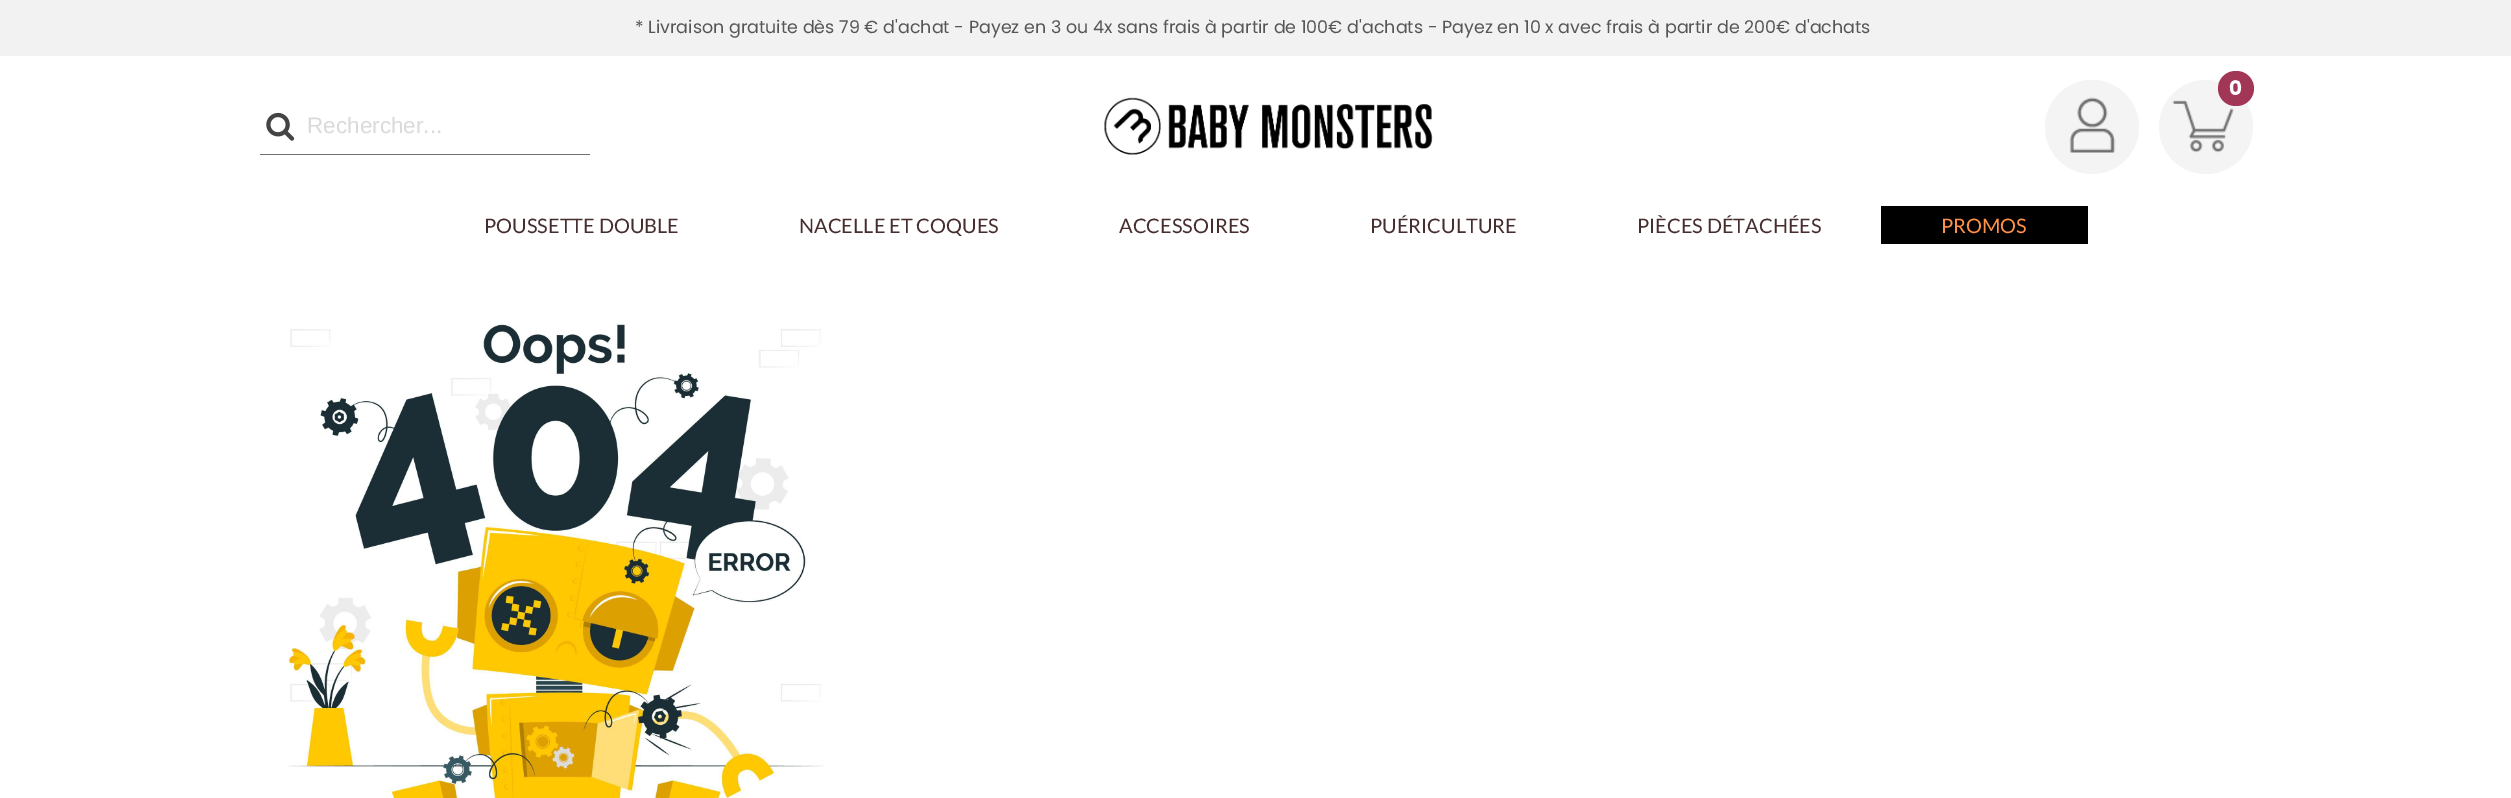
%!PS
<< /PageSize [2511 798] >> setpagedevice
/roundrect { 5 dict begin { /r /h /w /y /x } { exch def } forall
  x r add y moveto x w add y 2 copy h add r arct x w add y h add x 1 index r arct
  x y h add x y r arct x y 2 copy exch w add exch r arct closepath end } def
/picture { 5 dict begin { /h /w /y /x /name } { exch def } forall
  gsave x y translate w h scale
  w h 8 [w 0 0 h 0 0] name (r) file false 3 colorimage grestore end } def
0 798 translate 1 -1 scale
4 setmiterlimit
1 setgray
0 0 2511 798 rectfill
0.949 setgray
0 0 2511 56 rectfill
/Poppins-Regular [17.5 0 0 -17.5 0 0] selectfont
0.337 setgray
635 33 moveto (* Livraison gratuite dès 79 € d'achat - Payez en 3 ou 4x sans frais à partir de 100€ d'achats - Payez en 10 x avec frais à partir de 200€ d'achats) show
0.957 setgray
newpath 2092 127 47 0 360 arc closepath fill
(img1.rgb) 2069 97 47 56 picture
newpath 2206 127 47 0 360 arc closepath fill
(img2.rgb) 2172 100 62 53 picture
0.635 0.212 0.337 setrgbcolor
2218 71 36 35 17.5 roundrect fill
/Poppins-Bold [20 0 0 -20 0 0] selectfont
1 setgray
2229 95 moveto (0) show
0.439 setgray
260 154 330 1 rectfill
(img3.rgb) 266 112 29 29 picture
/LiberationSans-Regular [22.5 0 0 -22.5 0 0] selectfont
0.855 setgray
307 133 moveto (Rechercher...) show
(img4.rgb) 1104 97 329 58 picture
/Lato-Regular [20 0 0 -20 0 0] selectfont
0.275 0.176 0.18 setrgbcolor
484 233 moveto (POUSSETTE DOUBLE) show
799 233 moveto (NACELLE ET COQUES) show
1119 233 moveto (ACCESSOIRES) show
1370 233 moveto (PUÉRICULTURE) show
1637 233 moveto (PIÈCES DÉTACHÉES) show
0 setgray
1881 206 207 38 rectfill
1 0.565 0.278 setrgbcolor
1941 233 moveto (PROMOS) show
(img5.rgb) 287 321 537 477 picture
showpage
